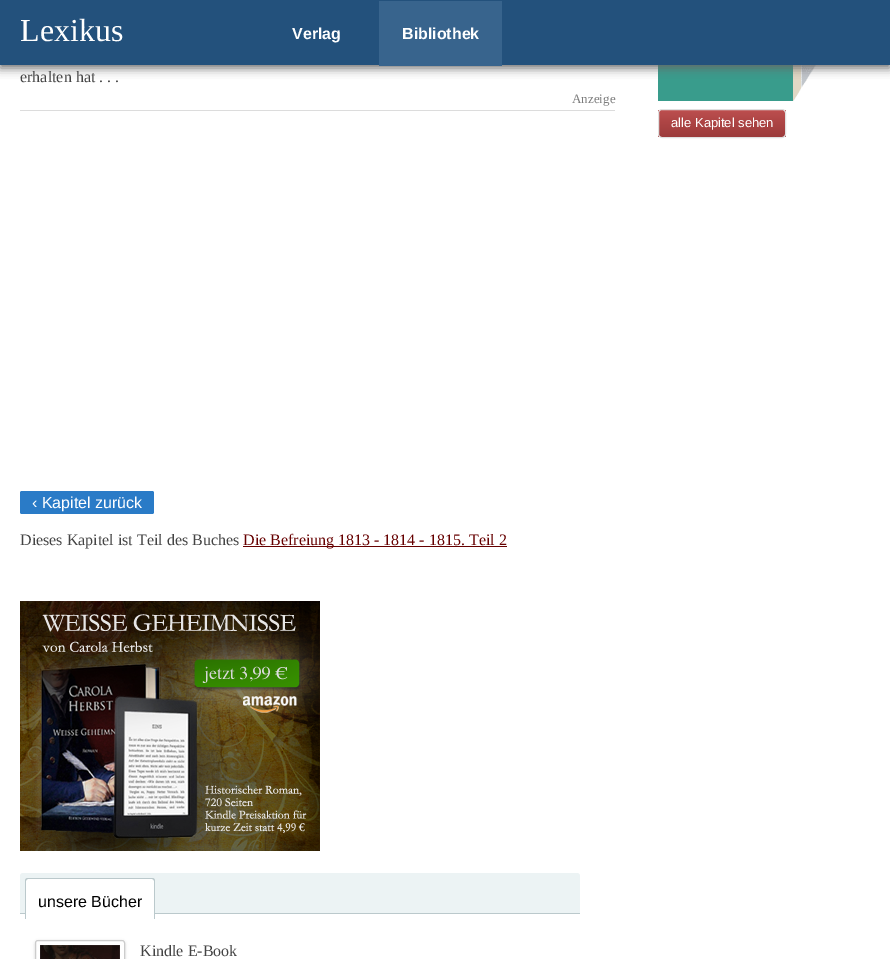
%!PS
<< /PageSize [890 959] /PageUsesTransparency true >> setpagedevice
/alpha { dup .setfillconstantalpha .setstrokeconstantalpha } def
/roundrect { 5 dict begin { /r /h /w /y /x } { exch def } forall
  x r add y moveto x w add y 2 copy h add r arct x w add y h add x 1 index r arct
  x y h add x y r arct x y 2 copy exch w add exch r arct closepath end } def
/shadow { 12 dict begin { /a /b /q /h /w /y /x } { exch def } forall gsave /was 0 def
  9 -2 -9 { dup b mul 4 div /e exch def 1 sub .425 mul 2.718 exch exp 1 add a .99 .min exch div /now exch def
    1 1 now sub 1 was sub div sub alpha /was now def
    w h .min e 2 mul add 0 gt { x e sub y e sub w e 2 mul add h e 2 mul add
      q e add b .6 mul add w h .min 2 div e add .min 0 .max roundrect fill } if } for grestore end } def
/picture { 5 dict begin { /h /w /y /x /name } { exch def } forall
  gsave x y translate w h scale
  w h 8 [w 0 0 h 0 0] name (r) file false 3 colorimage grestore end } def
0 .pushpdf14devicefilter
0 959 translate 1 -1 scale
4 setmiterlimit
1 setgray
0 0 890 959 rectfill
0.224 0.612 0.549 setrgbcolor
658 65 135 36 rectfill
(img1.rgb) 793 65 32 36 picture
0.4 setgray
0 3 890 65 0 5 1 shadow
0.137 0.318 0.486 setrgbcolor
0 0 890 65 rectfill
/Tinos-Regular [32 0 0 -32 0 0] selectfont
1 setgray
20 41 moveto (Lexikus) show
/LiberationSans-Bold [16 0 0 -16 0 0] selectfont
292 39 moveto (Verlag) show
0.22 0.392 0.553 setrgbcolor
379 1 123 65 rectfill
1 setgray
402 39 moveto (Bibliothek) show
/Tinos-Regular [16 0 0 -16 0 0] selectfont
0.267 setgray
20 82 moveto (erhalten hat . . .) show
0.863 setgray
20 110 595 1 rectfill
/Tinos-Regular [13 0 0 -13 0 0] selectfont
0.482 setgray
572 103 moveto (Anzeige) show
0.165 0.482 0.78 setrgbcolor
20 491 134 23 2 roundrect fill
/LiberationSans-Regular [16 0 0 -16 0 0] selectfont
1 setgray
32 508 moveto (‹ Kapitel zurück) show
/Tinos-Regular [16 0 0 -16 0 0] selectfont
0.267 setgray
20 545 moveto (Dieses Kapitel ist Teil des Buches) show
0.4 0 0 setrgbcolor
243 546 264 1 rectfill
243 545 moveto (Die Befreiung 1813 - 1814 - 1815. Teil 2) show
gsave
658 109 128 29 4 roundrect clip newpath
gsave newpath 658 110 moveto 786 110 lineto 786 137 lineto 658 137 lineto closepath clip newpath
<< /ShadingType 2 /ColorSpace /DeviceRGB /Coords [659 110 659 137] /Extend [true true] /Function << /FunctionType 3 /Domain [0 1] /Functions [<< /FunctionType 2 /Domain [0 1] /C0 [0.733 0.302 0.302] /C1 [0.733 0.302 0.302] /N 1 >> << /FunctionType 2 /Domain [0 1] /C0 [0.733 0.302 0.302] /C1 [0.612 0.231 0.231] /N 1 >>] /Bounds [0.05] /Encode [0 1 0 1] >> >> shfill grestore
grestore
0.878 setgray
658.5 109.5 127 28 3.5 roundrect stroke
/LiberationSans-Regular [13 0 0 -13 0 0] selectfont
1 setgray
671 127 moveto (alle Kapitel sehen) show
(img2.rgb) 20 601 300 250 picture
0.925 0.953 0.957 setrgbcolor
newpath 23 873 moveto 577 873 lineto 578.5 873 580 874.5 580 876 curveto 580 914 lineto 20 914 lineto 20 876 lineto 20 874.5 21.5 873 23 873 curveto closepath fill
0.733 0.788 0.8 setrgbcolor
20 913 560 1 rectfill
1 setgray
newpath 28 878 moveto 152 878 lineto 153.5 878 155 879.5 155 881 curveto 155 919 lineto 25 919 lineto 25 881 lineto 25 879.5 26.5 878 28 878 curveto closepath fill
0.733 0.788 0.8 setrgbcolor
newpath 28 878 moveto 152 878 lineto 154 878 155 879 155 881 curveto 155 919 lineto 25 919 lineto 25 881 lineto 25 879 26 878 28 878 curveto closepath 28 879 moveto 152 879 lineto 153 879 154 880 154 881 curveto 154 919 lineto 26 919 lineto 26 881 lineto 26 880 27 879 28 879 curveto closepath eofill
/LiberationSans-Regular [16 0 0 -16 0 0] selectfont
0 setgray
38 907 moveto (unsere Bücher) show
35 941 90 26 3 1.5 0.15 shadow
1 setgray
35.5 940.5 89 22 2.5 roundrect gsave fill grestore
0.8 setgray
stroke
(img3.rgb) 40 945 80 14 picture
/Tinos-Regular [16 0 0 -16 0 0] selectfont
0.267 setgray
140 956 moveto (Kindle E-Book) show
.poppdf14devicefilter showpage
